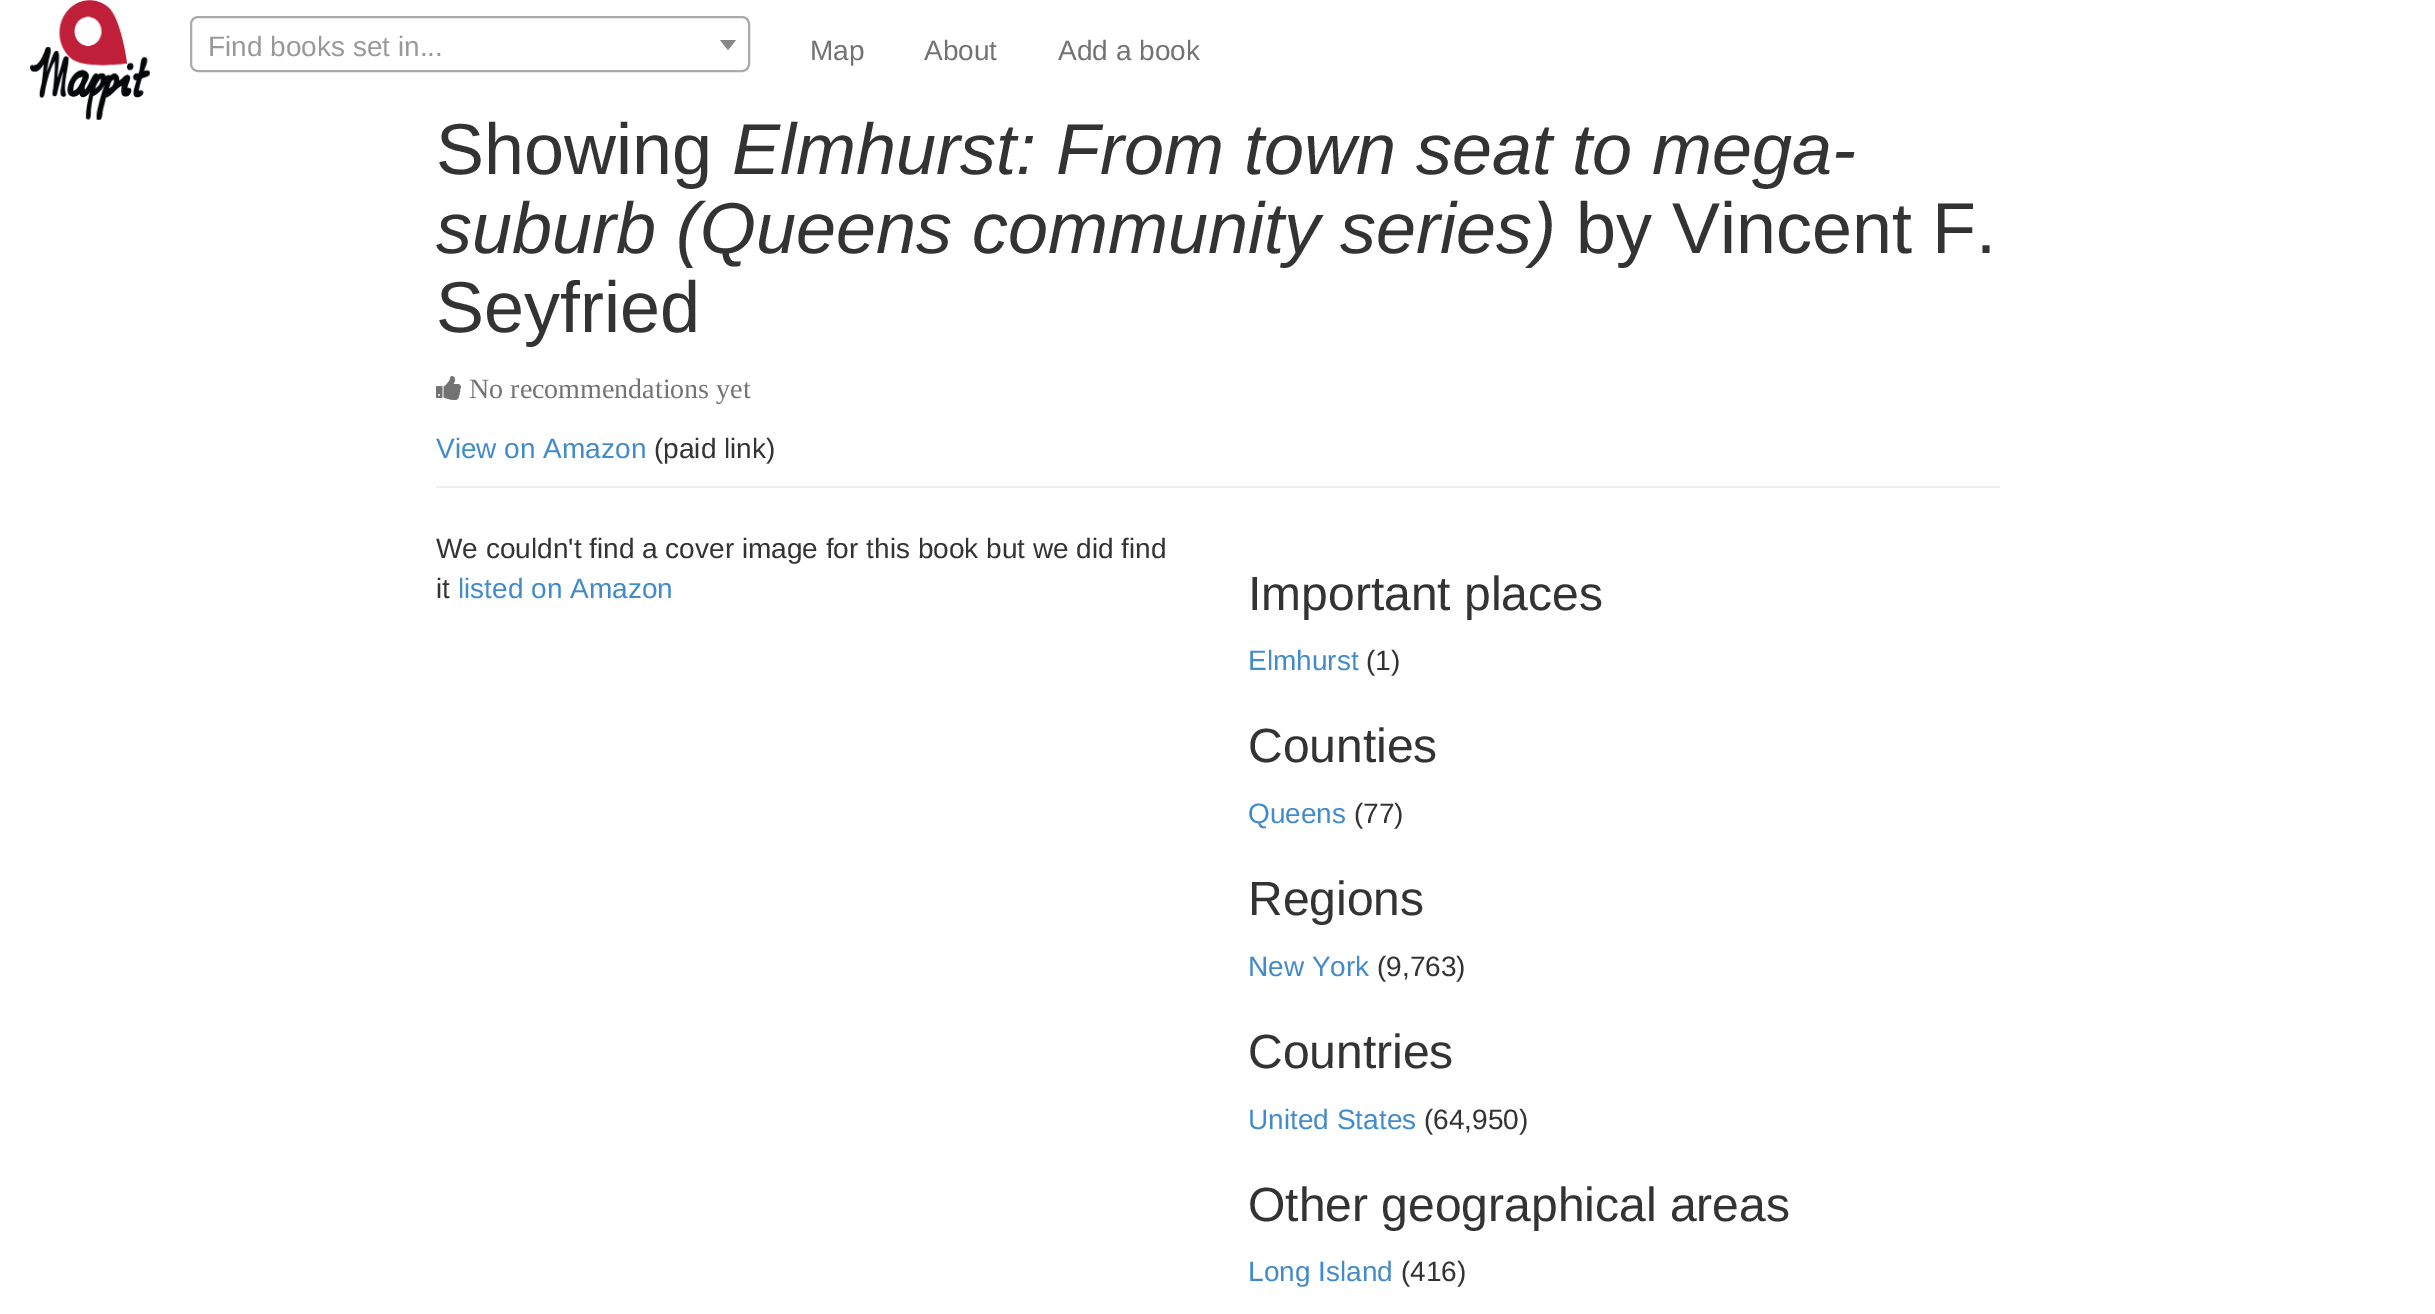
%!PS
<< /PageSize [2435 1314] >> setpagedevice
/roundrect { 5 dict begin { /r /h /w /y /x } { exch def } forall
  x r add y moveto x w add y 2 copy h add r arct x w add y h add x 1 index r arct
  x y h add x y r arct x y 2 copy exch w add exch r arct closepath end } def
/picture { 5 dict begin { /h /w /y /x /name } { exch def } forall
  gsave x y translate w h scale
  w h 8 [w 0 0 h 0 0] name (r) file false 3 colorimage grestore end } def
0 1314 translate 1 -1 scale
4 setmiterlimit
1 setgray
0 0 2435 1314 rectfill
(img1.rgb) 30 0 120 120 picture
0.667 setgray
2 setlinewidth
191 17 558 54 7 roundrect stroke
/LiberationSans-Regular [28 0 0 -28 0 0] selectfont
0.6 setgray
208 56 moveto (Find books set in...) show
0.533 setgray
newpath 720 40 moveto 736 40 lineto 728 50 lineto closepath fill
0.451 setgray
810 60 moveto (Map) show
924 60 moveto (About) show
1058 60 moveto (Add a book) show
0.933 setgray
436 486 1564 2 rectfill
/LiberationSans-Regular [72 0 0 -72 0 0] selectfont
0.2 setgray
436 174 moveto (Showing) show
/LiberationSans-Italic [72 0 0 -72 0 0] selectfont
732 174 moveto (Elmhurst: From town seat to mega-) show
436 253 moveto (suburb \(Queens community series\)) show
/LiberationSans-Regular [72 0 0 -72 0 0] selectfont
1576 253 moveto (by Vincent F.) show
436 332 moveto (Seyfried) show
(img2.rgb) 436 376 25 24 picture
/LiberationSerif-Regular [28 0 0 -28 0 0] selectfont
0.451 setgray
469 398 moveto (No recommendations yet) show
/LiberationSans-Regular [28 0 0 -28 0 0] selectfont
0.259 0.545 0.792 setrgbcolor
436 458 moveto (View on Amazon) show
0.2 setgray
654 458 moveto (\(paid link\)) show
436 558 moveto (We couldn't find a cover image for this book but we did find) show
436 598 moveto (it) show
0.259 0.545 0.792 setrgbcolor
458 598 moveto (listed on Amazon) show
/LiberationSans-Regular [48 0 0 -48 0 0] selectfont
0.2 setgray
1248 610 moveto (Important places) show
/LiberationSans-Regular [28 0 0 -28 0 0] selectfont
0.259 0.545 0.792 setrgbcolor
1248 670 moveto (Elmhurst) show
0.2 setgray
1366 670 moveto (\(1\)) show
/LiberationSans-Regular [48 0 0 -48 0 0] selectfont
1248 762 moveto (Counties) show
/LiberationSans-Regular [28 0 0 -28 0 0] selectfont
0.259 0.545 0.792 setrgbcolor
1248 823 moveto (Queens) show
0.2 setgray
1354 823 moveto (\(77\)) show
/LiberationSans-Regular [48 0 0 -48 0 0] selectfont
1248 915 moveto (Regions) show
/LiberationSans-Regular [28 0 0 -28 0 0] selectfont
0.259 0.545 0.792 setrgbcolor
1248 976 moveto (New York) show
0.2 setgray
1377 976 moveto (\(9,763\)) show
/LiberationSans-Regular [48 0 0 -48 0 0] selectfont
1248 1068 moveto (Countries) show
/LiberationSans-Regular [28 0 0 -28 0 0] selectfont
0.259 0.545 0.792 setrgbcolor
1248 1129 moveto (United States) show
0.2 setgray
1424 1129 moveto (\(64,950\)) show
/LiberationSans-Regular [48 0 0 -48 0 0] selectfont
1248 1221 moveto (Other geographical areas) show
/LiberationSans-Regular [28 0 0 -28 0 0] selectfont
0.259 0.545 0.792 setrgbcolor
1248 1281 moveto (Long Island) show
0.2 setgray
1401 1281 moveto (\(416\)) show
showpage
